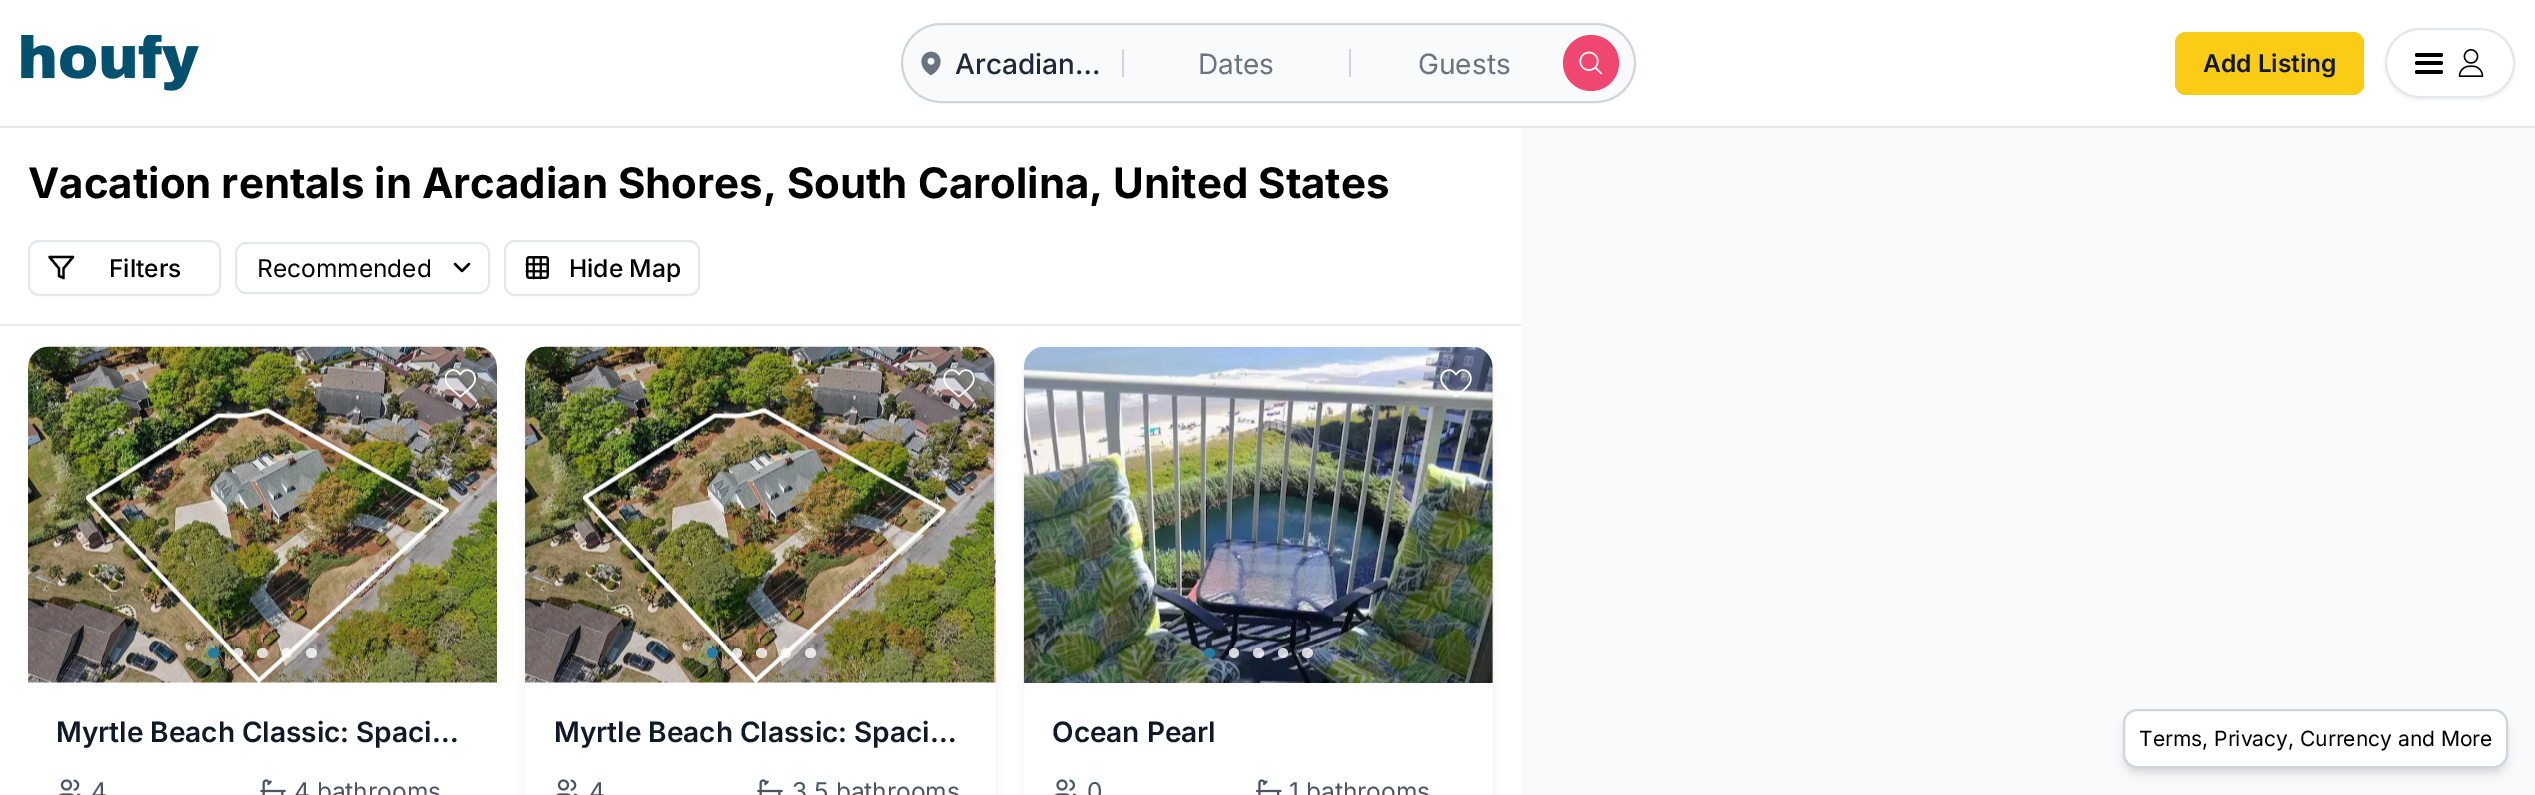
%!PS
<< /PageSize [2535 795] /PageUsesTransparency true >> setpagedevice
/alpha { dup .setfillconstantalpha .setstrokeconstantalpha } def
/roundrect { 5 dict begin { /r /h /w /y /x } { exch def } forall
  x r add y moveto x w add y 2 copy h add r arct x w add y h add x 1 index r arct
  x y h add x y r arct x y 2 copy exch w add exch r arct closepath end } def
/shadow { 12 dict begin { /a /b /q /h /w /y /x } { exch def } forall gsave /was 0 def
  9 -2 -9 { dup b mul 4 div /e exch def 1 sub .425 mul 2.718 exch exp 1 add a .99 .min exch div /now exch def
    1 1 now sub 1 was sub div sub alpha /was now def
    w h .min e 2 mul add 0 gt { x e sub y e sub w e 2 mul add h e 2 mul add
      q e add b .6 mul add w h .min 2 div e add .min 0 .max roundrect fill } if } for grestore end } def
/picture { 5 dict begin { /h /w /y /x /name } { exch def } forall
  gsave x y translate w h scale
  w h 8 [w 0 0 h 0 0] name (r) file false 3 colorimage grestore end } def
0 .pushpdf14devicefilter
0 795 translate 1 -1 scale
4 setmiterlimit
1 setgray
0 0 2535 795 rectfill
0.898 0.906 0.922 setrgbcolor
0 126 2535 2 rectfill
(img1.rgb) 21 35 178 56 picture
0.976 0.98 0.984 setrgbcolor
902 24 733 78 39 roundrect gsave fill grestore
0.82 0.835 0.859 setrgbcolor
2 setlinewidth
stroke
(img2.rgb) 921 51 20 25 picture
/Inter-Medium [28 0 0 -28 0 0] selectfont
0.122 0.161 0.216 setrgbcolor
955 74 moveto (Arcadian…) show
0.82 0.835 0.859 setrgbcolor
1122 49 2 28 rectfill
/Inter-Regular [28 0 0 -28 0 0] selectfont
0.42 0.447 0.502 setrgbcolor
1198 74 moveto (Dates) show
0.82 0.835 0.859 setrgbcolor
1349 49 2 28 rectfill
0.42 0.447 0.502 setrgbcolor
1418 74 moveto (Guests) show
0.937 0.278 0.435 setrgbcolor
newpath 1591 63 28 0 360 arc closepath fill
(img3.rgb) 1579 51 24 24 picture
0.98 0.8 0.082 setrgbcolor
2175 32 189 63 11 roundrect fill
/Inter-SemiBold [24.5 0 0 -24.5 0 0] selectfont
0.067 0.094 0.153 setrgbcolor
2203 72 moveto (Add Listing) show
0 setgray
2385 30 130 70 35 2 0.05 shadow
1 setgray
2386 29 128 68 34 roundrect gsave fill grestore
0.898 0.906 0.922 setrgbcolor
stroke
0 setgray
2415 53 28 4 2 roundrect fill
2415 61 28 4 2 roundrect fill
2415 70 28 4 2 roundrect fill
(img4.rgb) 2458 49 26 28 picture
0.976 0.98 0.984 setrgbcolor
1521 128 1014 667 rectfill
0.898 0.906 0.922 setrgbcolor
0 324 1521 2 rectfill
/Inter-Bold [42 0 0 -42 0 0] selectfont
0 setgray
28 198 moveto (Vacation rentals in Arcadian Shores, South Carolina, United States) show
0.898 0.906 0.922 setrgbcolor
29 241 191 54 10 roundrect stroke
0 setgray
2.3 setlinewidth
1 setlinecap
1 setlinejoin
newpath 73 257 moveto 49.5 257 lineto 59 268.5 lineto 59 276 lineto 63.5 278 lineto 63.5 268.5 lineto closepath stroke
/Inter-Medium [24.5 0 0 -24.5 0 0] selectfont
109 277 moveto (Filters) show
0.898 0.906 0.922 setrgbcolor
2 setlinewidth
0 setlinecap
0 setlinejoin
236 243 253 50 10 roundrect stroke
/Inter-Regular [24.5 0 0 -24.5 0 0] selectfont
0 setgray
257 277 moveto (Recommended) show
2.3 setlinewidth
1 setlinecap
1 setlinejoin
newpath 455 264 moveto 462 271 lineto 469 264 lineto stroke
0.898 0.906 0.922 setrgbcolor
2 setlinewidth
0 setlinecap
0 setlinejoin
505 241 194 54 10 roundrect stroke
(img5.rgb) 525 256 24 24 picture
/Inter-Medium [24.5 0 0 -24.5 0 0] selectfont
0 setgray
569 277 moveto (Hide Map) show
(img6.rgb) 28 346 469 337 picture
0.153 0.49 0.631 setrgbcolor
208 648 11 10 5 roundrect fill
0.8 alpha
1 setgray
newpath 238 653 5 0 360 arc closepath fill
257 648 11 10 5 roundrect fill
newpath 287 653 5 0 360 arc closepath fill
306 648 11 10 5 roundrect fill
1 alpha
(img7.rgb) 445 369 31 29 picture
/Inter-SemiBold [28 0 0 -28 0 0] selectfont
0.067 0.094 0.153 setrgbcolor
56 742 moveto (Myrtle Beach Classic: Spaci…) show
(img8.rgb) 59 779 22 16 picture
/Inter-Regular [24.5 0 0 -24.5 0 0] selectfont
0.294 0.333 0.388 setrgbcolor
91 800 moveto (4) show
(img9.rgb) 260 779 26 16 picture
294 800 moveto (4 bathrooms) show
0 setgray
527 355 467 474 19 5 0.1 shadow
1 setgray
newpath 546 347 moveto 975 347 lineto 986.5 347 996 356.5 996 368 curveto 996 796 lineto 525 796 lineto 525 368 lineto 525 356.5 534.5 347 546 347 curveto closepath fill
(img10.rgb) 525 346 469 337 picture
(img11.rgb) 994 359 2 324 picture
0.153 0.49 0.631 setrgbcolor
707 648 11 10 5 roundrect fill
0.8 alpha
1 setgray
newpath 737 653 5 0 360 arc closepath fill
756 648 11 10 5 roundrect fill
newpath 786 653 5 0 360 arc closepath fill
805 648 11 10 5 roundrect fill
1 alpha
(img12.rgb) 943 369 32 29 picture
/Inter-SemiBold [28 0 0 -28 0 0] selectfont
0.067 0.094 0.153 setrgbcolor
554 742 moveto (Myrtle Beach Classic: Spaci…) show
(img8.rgb) 556 779 22 16 picture
/Inter-Regular [24.5 0 0 -24.5 0 0] selectfont
0.294 0.333 0.388 setrgbcolor
589 800 moveto (4) show
(img9.rgb) 757 779 26 16 picture
792 800 moveto (3.5 bathrooms) show
0 setgray
1026 355 465 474 19 5 0.1 shadow
1 setgray
newpath 1045 347 moveto 1472 347 lineto 1483.5 347 1493 356.5 1493 368 curveto 1493 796 lineto 1024 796 lineto 1024 368 lineto 1024 356.5 1033.5 347 1045 347 curveto closepath fill
(img13.rgb) 1023 347 470 336 picture
(img14.rgb) 1492 364 1 319 picture
0.153 0.49 0.631 setrgbcolor
1204 648 11 10 5 roundrect fill
0.8 alpha
1 setgray
newpath 1234 653 5 0 360 arc closepath fill
1253 648 11 10 5 roundrect fill
newpath 1283 653 5 0 360 arc closepath fill
1302 648 11 10 5 roundrect fill
1 alpha
(img15.rgb) 1440 369 32 29 picture
/Inter-SemiBold [28 0 0 -28 0 0] selectfont
0.067 0.094 0.153 setrgbcolor
1052 742 moveto (Ocean Pearl) show
(img16.rgb) 1054 779 23 16 picture
/Inter-Regular [24.5 0 0 -24.5 0 0] selectfont
0.294 0.333 0.388 setrgbcolor
1087 800 moveto (0) show
(img17.rgb) 1256 779 26 16 picture
1289 800 moveto (1 bathrooms) show
0 setgray
2126 716 378 52 11 3.5 0.1 shadow
2125 718 381 56 12 5 0.1 shadow
1 setgray
2124 710 383 57 13 roundrect gsave fill grestore
0.82 0.835 0.859 setrgbcolor
stroke
/Inter-Regular [21 0 0 -21 0 0] selectfont
0 setgray
2139 746 moveto (Terms, Privacy, Currency and More) show
.poppdf14devicefilter showpage
